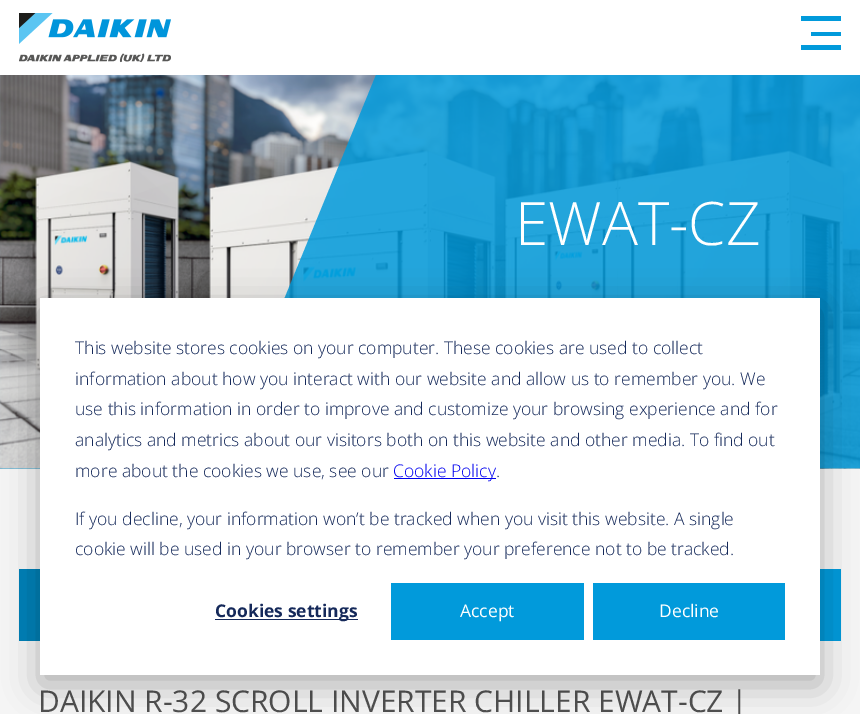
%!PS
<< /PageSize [860 714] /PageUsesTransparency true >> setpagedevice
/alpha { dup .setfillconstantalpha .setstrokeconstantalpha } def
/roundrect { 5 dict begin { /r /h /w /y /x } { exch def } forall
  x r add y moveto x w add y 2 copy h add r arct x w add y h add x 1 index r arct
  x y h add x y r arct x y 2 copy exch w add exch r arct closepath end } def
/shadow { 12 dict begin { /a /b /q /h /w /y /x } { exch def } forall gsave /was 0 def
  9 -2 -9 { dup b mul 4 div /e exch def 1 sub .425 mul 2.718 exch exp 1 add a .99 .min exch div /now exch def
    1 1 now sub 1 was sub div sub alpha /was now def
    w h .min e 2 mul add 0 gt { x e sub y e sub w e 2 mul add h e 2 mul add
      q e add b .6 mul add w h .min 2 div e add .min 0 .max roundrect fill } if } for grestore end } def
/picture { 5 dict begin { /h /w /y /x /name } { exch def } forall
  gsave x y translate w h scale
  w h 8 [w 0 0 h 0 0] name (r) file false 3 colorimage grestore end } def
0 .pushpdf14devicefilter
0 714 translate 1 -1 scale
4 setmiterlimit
1 setgray
0 0 860 714 rectfill
(img1.rgb) 19 13 152 50 picture
gsave newpath 811 32 moveto 841 32 lineto 841 36 lineto 811 36 lineto closepath clip newpath
<< /ShadingType 2 /ColorSpace /DeviceRGB /Coords [821 14 821 54] /Extend [true true] /Function << /FunctionType 3 /Domain [0 1] /Functions [<< /FunctionType 2 /Domain [0 1] /C0 [1 1 1] /C1 [1 1 1] /N 1 >> << /FunctionType 2 /Domain [0 1] /C0 [0.004 0.604 0.859] /C1 [0.004 0.604 0.859] /N 1 >> << /FunctionType 2 /Domain [0 1] /C0 [1 1 1] /C1 [1 1 1] /N 1 >>] /Bounds [0.44 0.56] /Encode [0 1 0 1 0 1] >> >> shfill grestore
0.004 0.604 0.859 setrgbcolor
801 16 40 5 rectfill
801 45 40 5 rectfill
0.961 setgray
0 469 860 245 rectfill
0.004 0.604 0.859 setrgbcolor
0 75 860 394 rectfill
(img2.rgb) 0 75 860 394 picture
0.85 alpha
newpath 376 75 moveto 860 75 lineto 860 468 lineto 215 468 lineto closepath fill
/OpenSans-Light [60 0 0 -60 0 0] selectfont
1 alpha
1 setgray
515 245 moveto (EWAT-CZ) show
0 0.502 0.718 setrgbcolor
19 569 21 72 rectfill
0.004 0.604 0.859 setrgbcolor
820 569 21 72 rectfill
/OpenSans-Regular [30 0 0 -30 0 0] selectfont
0.318 setgray
38 712 moveto (DAIKIN R-32 SCROLL INVERTER CHILLER EWAT-CZ |) show
0 setgray
40 308 780 377 0 17.5 0.28 shadow
1 setgray
40 298 780 377 rectfill
/OpenSans-Light [17.5 0 0 -17.5 0 0] selectfont
0.082 0.161 0.353 setrgbcolor
75 354 moveto (This website stores cookies on your computer. These cookies are used to collect) show
75 385 moveto (information about how you interact with our website and allow us to remember you. We) show
75 415 moveto (use this information in order to improve and customize your browsing experience and for) show
75 446 moveto (analytics and metrics about our visitors both on this website and other media. To find out) show
75 477 moveto (more about the cookies we use, see our) show
0 0 0.933 setrgbcolor
394 478 102 1 rectfill
393 477 moveto (Cookie Policy) show
0.082 0.161 0.353 setrgbcolor
496 477 moveto (.) show
75 525 moveto (If you decline, your information won’t be tracked when you visit this website. A single) show
75 555 moveto (cookie will be used in your browser to remember your preference not to be tracked.) show
215 619 143 1 rectfill
/OpenSans-Bold [17.5 0 0 -17.5 0 0] selectfont
215 617 moveto (Cookies settings) show
0.004 0.604 0.859 setrgbcolor
391 583 193 57 rectfill
/OpenSans-Regular [17.5 0 0 -17.5 0 0] selectfont
1 setgray
460 617 moveto (Accept) show
0.004 0.604 0.859 setrgbcolor
593 583 192 57 rectfill
1 setgray
659 617 moveto (Decline) show
.poppdf14devicefilter showpage
